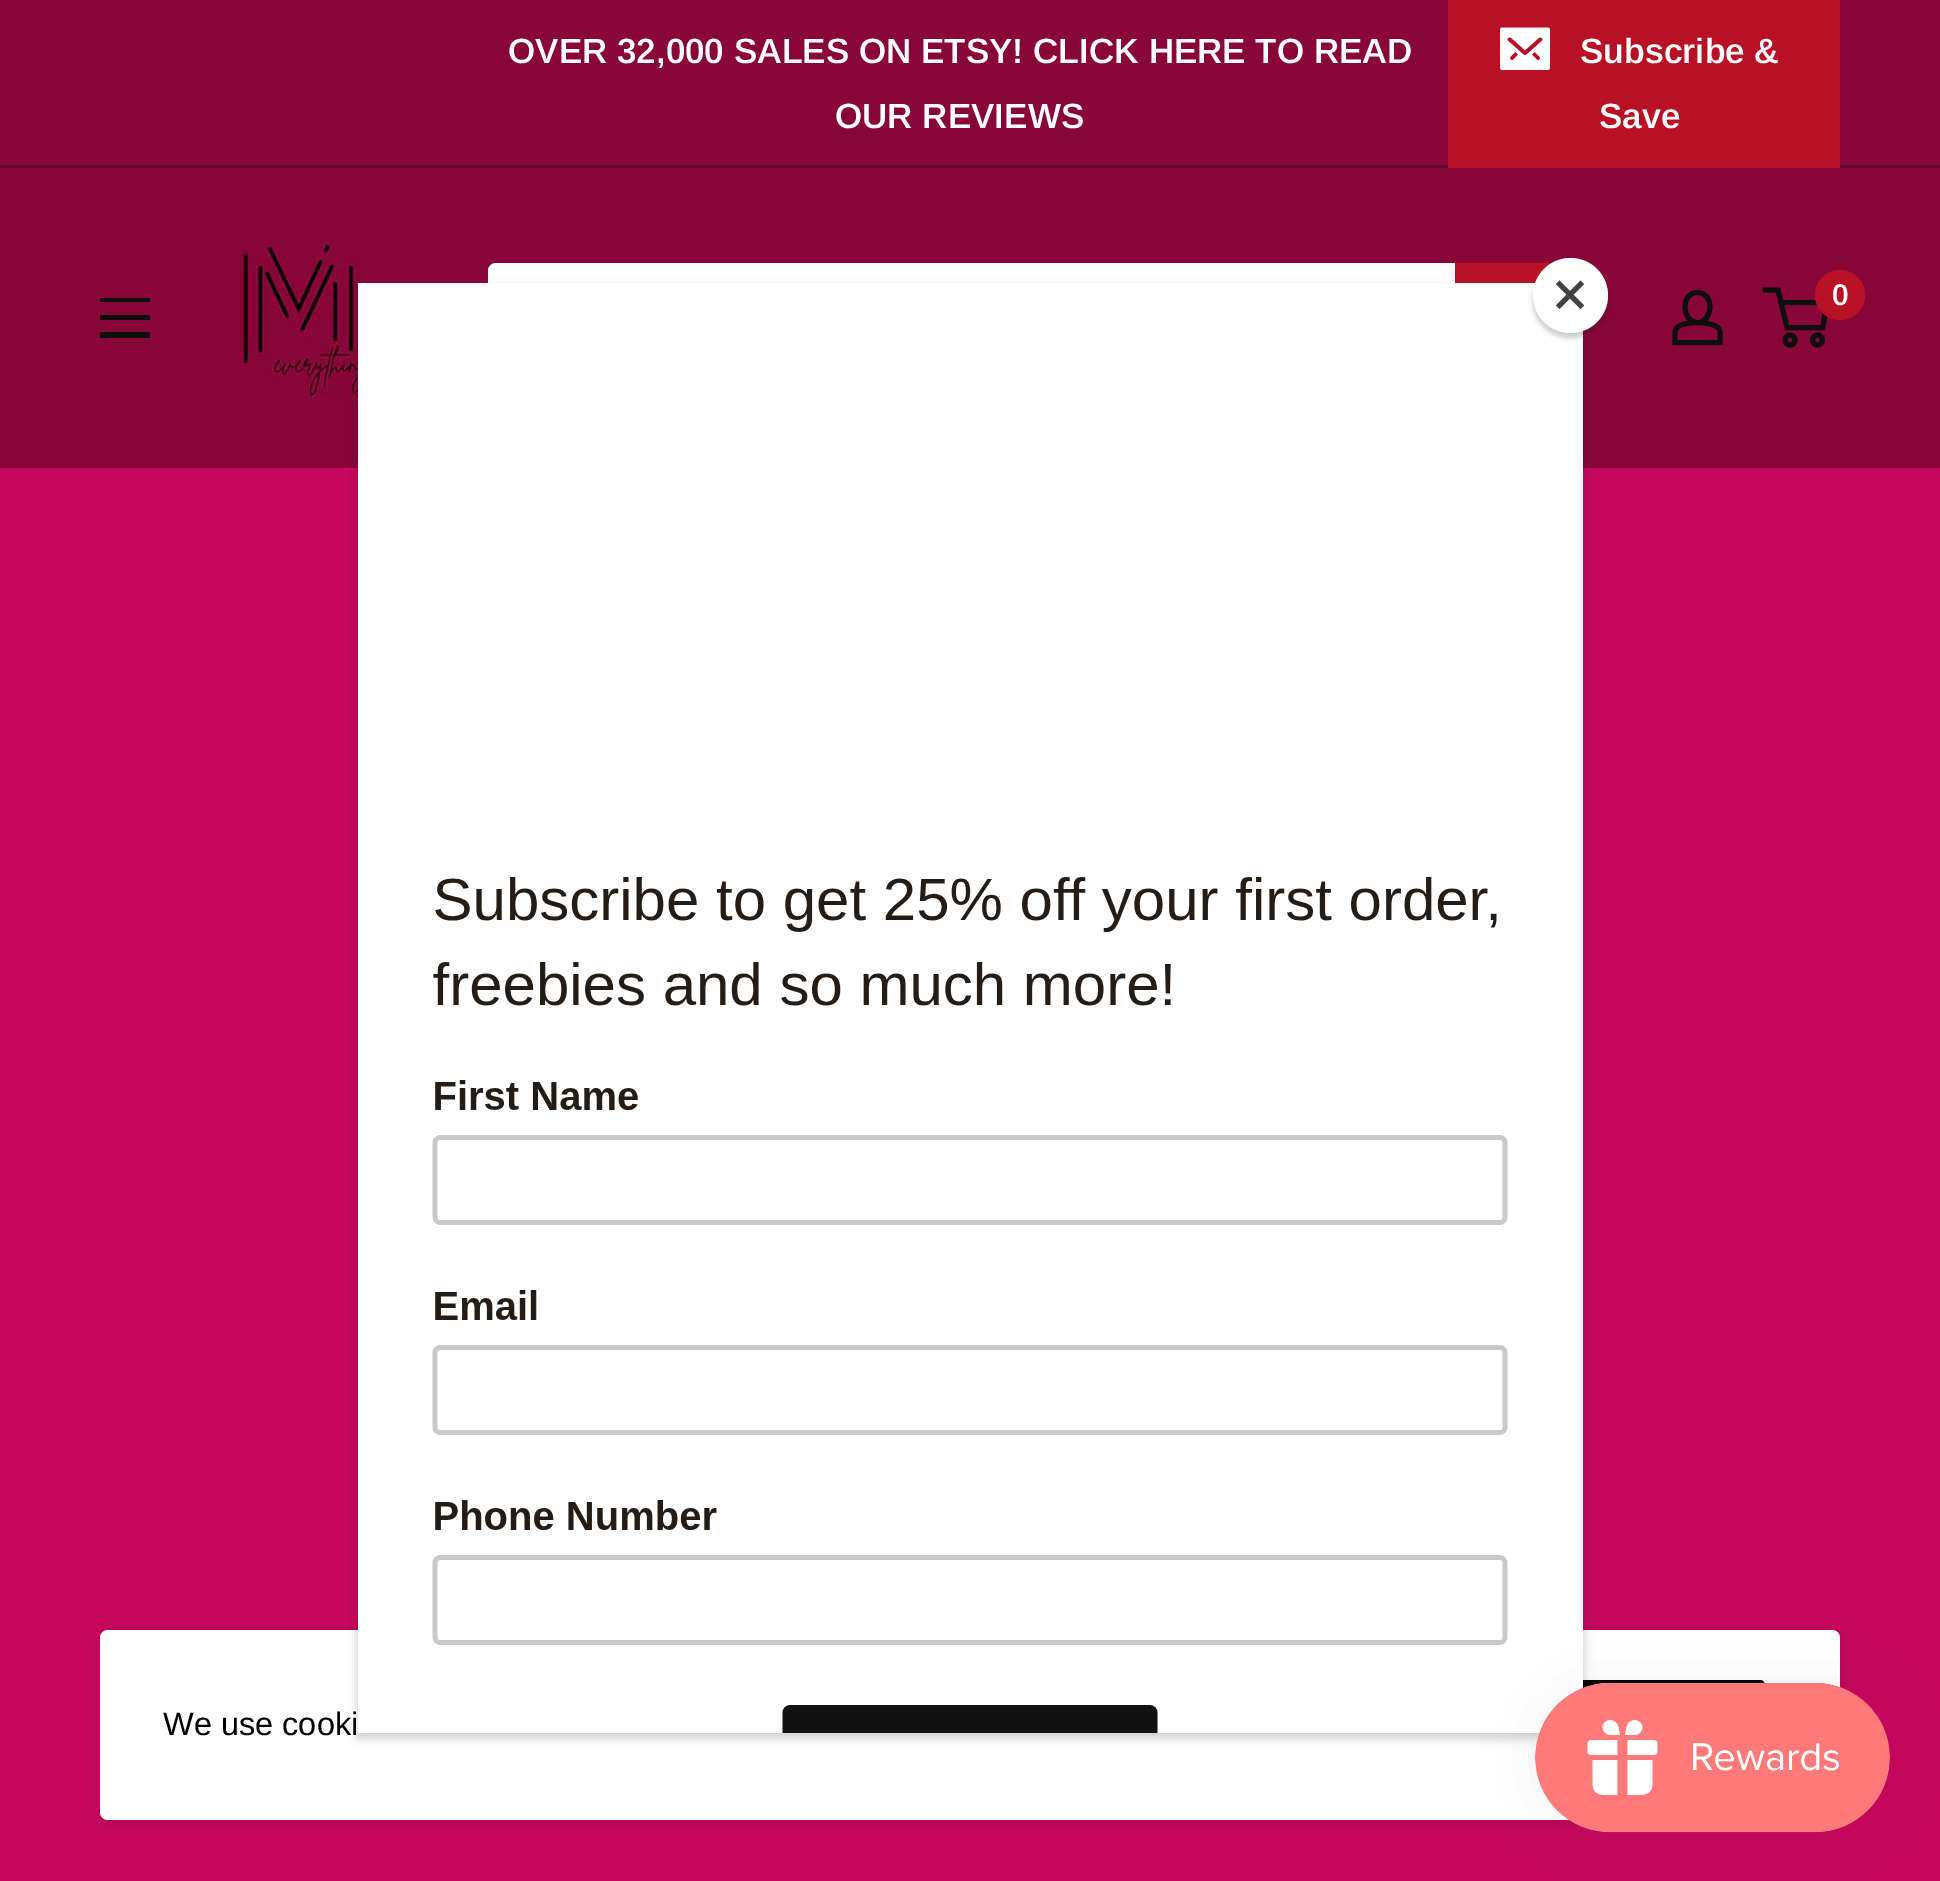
%!PS
<< /PageSize [1940 1881] /PageUsesTransparency true >> setpagedevice
/alpha { dup .setfillconstantalpha .setstrokeconstantalpha } def
/roundrect { 5 dict begin { /r /h /w /y /x } { exch def } forall
  x r add y moveto x w add y 2 copy h add r arct x w add y h add x 1 index r arct
  x y h add x y r arct x y 2 copy exch w add exch r arct closepath end } def
/shadow { 12 dict begin { /a /b /q /h /w /y /x } { exch def } forall gsave /was 0 def
  9 -2 -9 { dup b mul 4 div /e exch def 1 sub .425 mul 2.718 exch exp 1 add a .99 .min exch div /now exch def
    1 1 now sub 1 was sub div sub alpha /was now def
    w h .min e 2 mul add 0 gt { x e sub y e sub w e 2 mul add h e 2 mul add
      q e add b .6 mul add w h .min 2 div e add .min 0 .max roundrect fill } if } for grestore end } def
/picture { 5 dict begin { /h /w /y /x /name } { exch def } forall
  gsave x y translate w h scale
  w h 8 [w 0 0 h 0 0] name (r) file false 3 colorimage grestore end } def
0 .pushpdf14devicefilter
0 1881 translate 1 -1 scale
4 setmiterlimit
0.78 0.031 0.369 setrgbcolor
0 0 1940 1881 rectfill
0.537 0.024 0.224 setrgbcolor
0 0 1940 165 rectfill
0.392 0.031 0.173 setrgbcolor
0 165 1940 3 rectfill
/Arimo-SemiBold [35 0 0 -35 0 0] selectfont
1 setgray
508 63 moveto (OVER 32,000 SALES ON ETSY! CLICK HERE TO READ) show
835 128 moveto (OUR REVIEWS) show
0.722 0.067 0.145 setrgbcolor
1448 0 392 168 rectfill
(img1.rgb) 1500 27 50 43 picture
1 setgray
1580 63 moveto (Subscribe &) show
1599 128 moveto (Save) show
0.537 0.024 0.224 setrgbcolor
0 168 1940 300 rectfill
(img3.rgb) 240 242 133 155 picture
1 setgray
488 263 1092 110 8 roundrect fill
0.722 0.067 0.145 setrgbcolor
1455 263 97 20 rectfill
0 setgray
98 1630 1745 195 10 5 0.1 shadow
1 setgray
100 1630 1740 190 8 roundrect fill
0.012 setgray
1570 1680 195 90 5 roundrect fill
0 setgray
358 288 1225 1450 0 5 0.2 shadow
(img2.rgb) 358 283 1225 1450 picture
1533 263 75 75 37.5 2.5 0.2 shadow
1 setgray
newpath 1570.5 295.5 37.5 0 360 arc closepath fill
0.255 setgray
newpath 1580.5 280.5 moveto 1584 284 lineto 1559.5 309 lineto 1556 305.5 lineto closepath fill
newpath 1556 284 moveto 1559.5 280.5 lineto 1584 305.5 lineto 1580.5 309 lineto closepath fill
0.055 setgray
5 setlinewidth
newpath 1697.5 322.5 moveto 1702 322.5 1707 323 1711.5 324.5 curveto 1722.5 327.5 1720 333 1720 342.5 curveto 1675 342.5 lineto 1675 332.5 1672.5 327 1684.5 324 curveto 1688.5 323 1693 322.5 1697.5 322.5 curveto closepath 1697.5 322.5 moveto 1682 322.5 1679.5 292.5 1697.5 292.5 curveto 1715.5 292.5 1713 322.5 1697.5 322.5 curveto closepath stroke
newpath 1790 340 5 0 360 arc closepath stroke
newpath 1817.5 340 5 0 360 arc closepath stroke
newpath 1781 302.5 moveto 1826.5 302.5 lineto 1823 327.5 lineto 1787 327.5 lineto 1778 290 lineto 1762.5 290 lineto stroke
0.722 0.067 0.145 setrgbcolor
newpath 1840 295 25 0 360 arc closepath fill
/Arimo-SemiBold [30 0 0 -30 0 0] selectfont
1 setgray
1832 305 moveto (0) show
0.055 setgray
newpath 100 332 moveto 150 332 lineto 150 338 lineto 100 338 lineto closepath 100 298 moveto 150 298 lineto 150 302 lineto 100 302 lineto closepath 100 315 moveto 150 315 lineto 150 320 lineto 100 320 lineto closepath eofill
/Arimo-Regular [32.5 0 0 -32.5 0 0] selectfont
0.008 setgray
163 1735 moveto (We use cooki) show
0 setgray
1535 1683 355 150 75 31 0.05 shadow
(img4.rgb) 1535 1682 355 151 picture
.poppdf14devicefilter showpage
